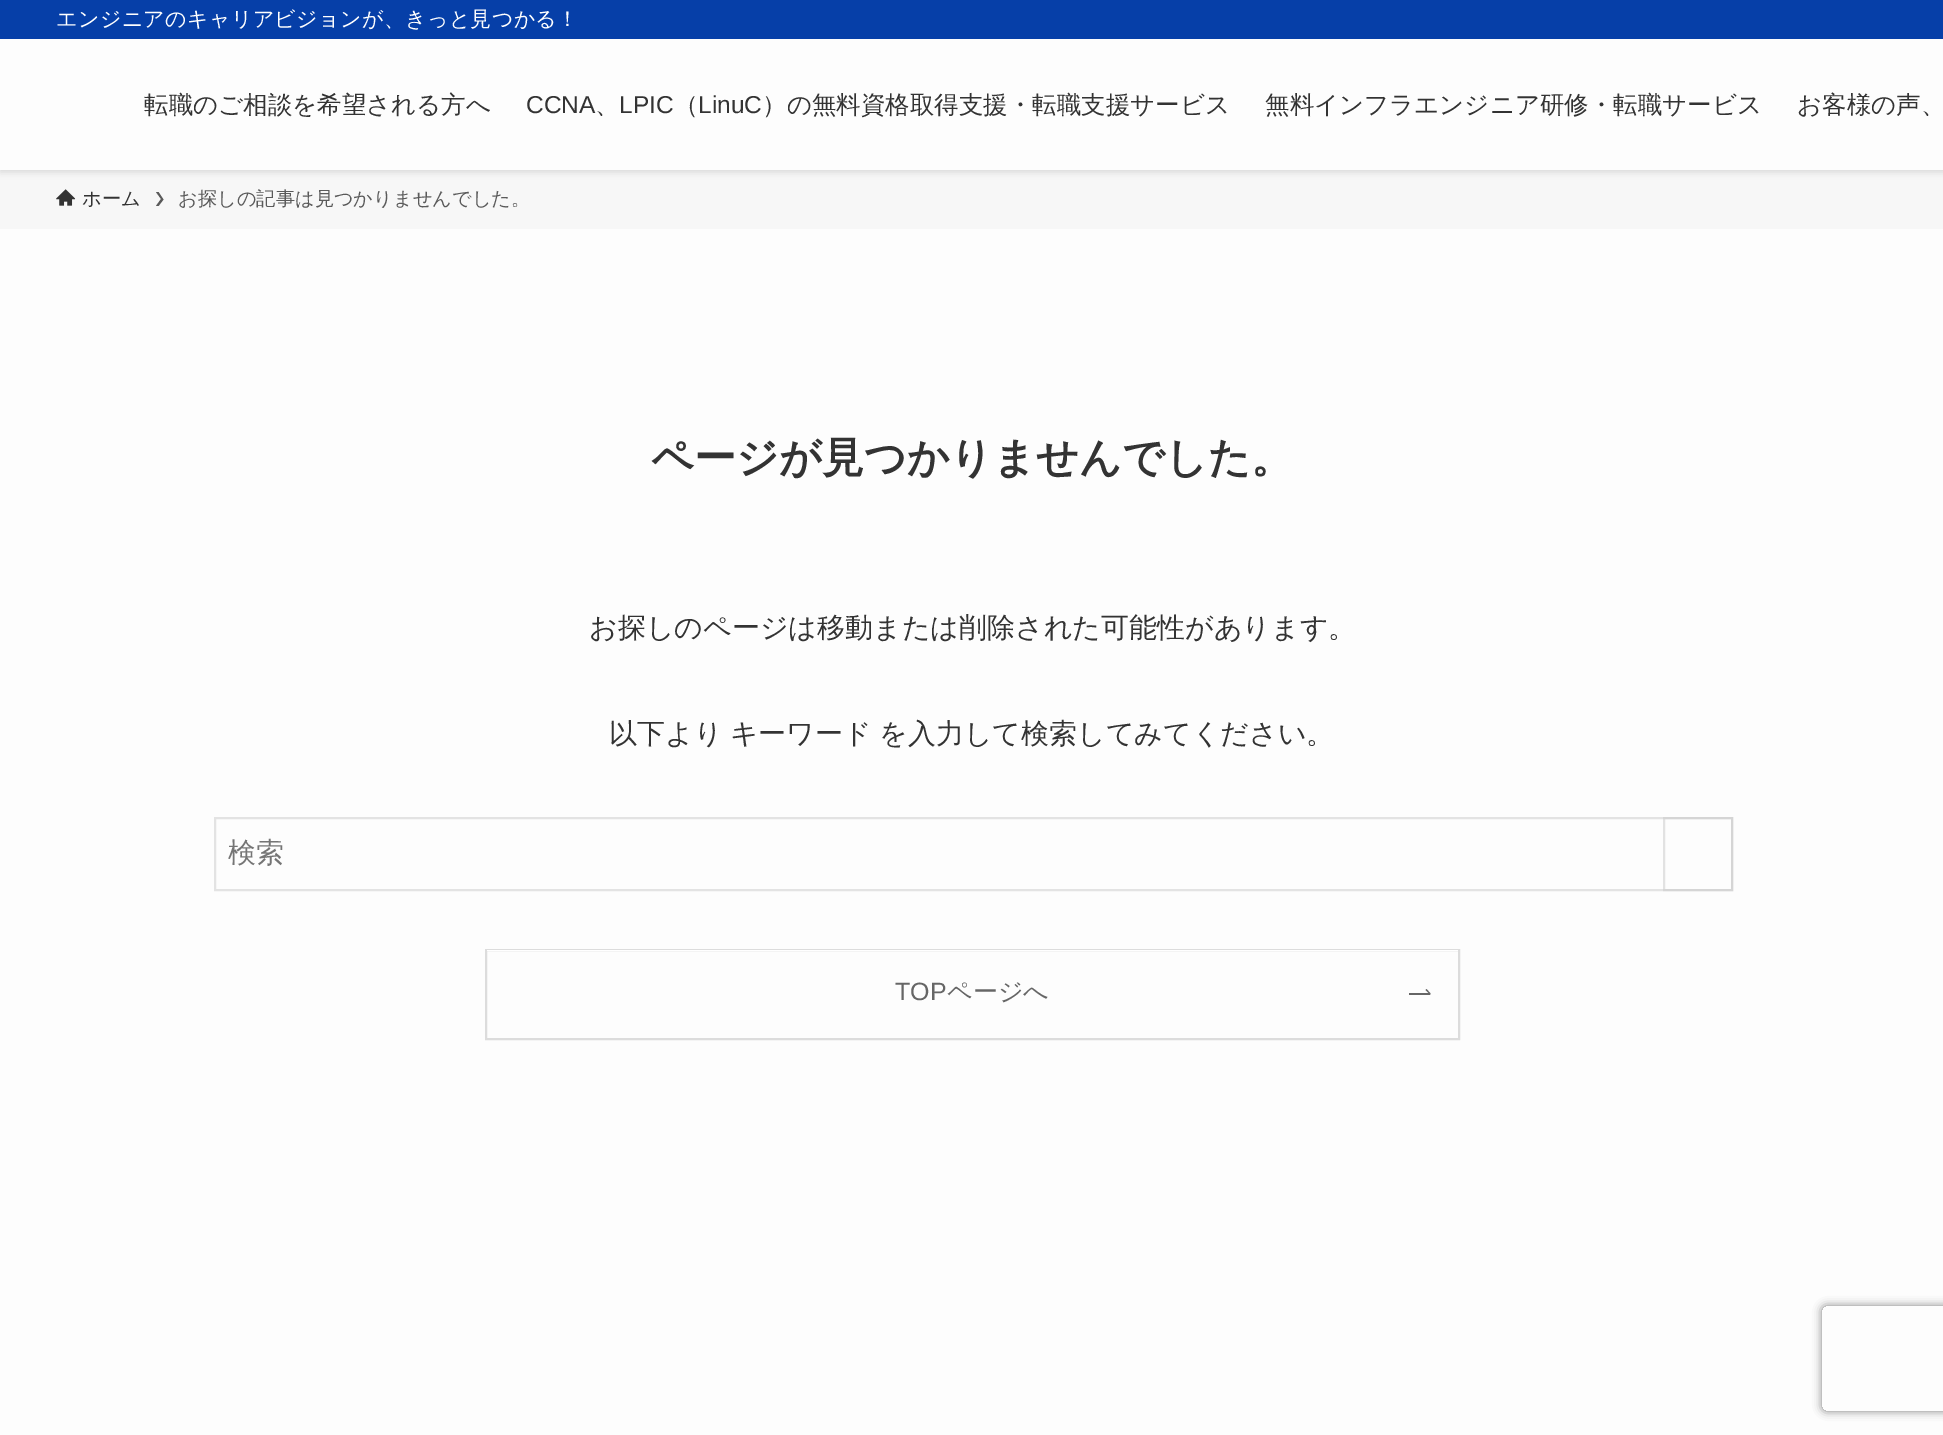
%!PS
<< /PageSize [1943 1435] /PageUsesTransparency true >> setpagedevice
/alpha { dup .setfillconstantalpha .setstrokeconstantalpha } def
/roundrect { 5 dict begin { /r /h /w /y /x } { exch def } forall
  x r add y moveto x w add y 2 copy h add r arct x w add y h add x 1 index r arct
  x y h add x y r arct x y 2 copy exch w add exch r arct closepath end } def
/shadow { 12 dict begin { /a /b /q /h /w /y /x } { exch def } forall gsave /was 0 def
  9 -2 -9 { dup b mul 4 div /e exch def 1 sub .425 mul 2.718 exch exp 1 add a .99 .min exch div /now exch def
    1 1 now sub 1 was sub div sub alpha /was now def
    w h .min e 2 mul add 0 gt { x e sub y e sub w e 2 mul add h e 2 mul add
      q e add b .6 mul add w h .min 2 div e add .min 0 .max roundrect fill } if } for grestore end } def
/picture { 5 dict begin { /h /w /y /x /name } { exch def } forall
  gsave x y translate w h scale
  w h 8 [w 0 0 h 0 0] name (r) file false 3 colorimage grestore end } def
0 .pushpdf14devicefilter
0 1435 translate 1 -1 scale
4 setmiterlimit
0.992 setgray
0 0 1943 1435 rectfill
0.969 setgray
0 170 1943 59 rectfill
0 setgray
0 2 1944 170 0 3.5 0.12 shadow
0.992 setgray
0 39 1943 131 rectfill
0.024 0.247 0.659 setrgbcolor
0 0 1943 39 rectfill
/WenQuanYiZenHei-Medium [21 0 0 -21 0 0] selectfont
1 setgray
56 26 moveto 0.35 0 (エンジニアのキャリアビジョンが、きっと見つかる！) ashow
/WenQuanYiZenHei-Medium [24.5 0 0 -24.5 0 0] selectfont
0.2 setgray
144 113 moveto (転職のご相談を希望される方へ) show
/LiberationSans-Regular [24.5 0 0 -24.5 0 0] selectfont
526 113 moveto (CCNA) show
/WenQuanYiZenHei-Medium [24.5 0 0 -24.5 0 0] selectfont
595 113 moveto (、) show
/LiberationSans-Regular [24.5 0 0 -24.5 0 0] selectfont
619 113 moveto (LPIC) show
/WenQuanYiZenHei-Medium [24.5 0 0 -24.5 0 0] selectfont
674 113 moveto (（) show
/LiberationSans-Regular [24.5 0 0 -24.5 0 0] selectfont
698 113 moveto (LinuC) show
/WenQuanYiZenHei-Medium [24.5 0 0 -24.5 0 0] selectfont
762 113 moveto (）の無料資格取得支援・転職支援サービス) show
1265 113 moveto (無料インフラエンジニア研修・転職サービス) show
1797 113 moveto (お客様の声、) show
(img1.rgb) 56 189 20 17 picture
/WenQuanYiZenHei-Medium [19.25 0 0 -19.25 0 0] selectfont
82 205 moveto (ホーム) show
0.353 setgray
newpath 158.5 192 moveto 156 192 lineto 161 199 lineto 156 206 lineto 158.5 206 lineto 163.5 199.5 lineto closepath fill
178 205 moveto (お探しの記事は見つかりませんでした。) show
/WenQuanYiZenHei-Bold [42 0 0 -42 0 0] selectfont
0.2 setgray
651 472 moveto (ページが見つかりませんでした。) show
/WenQuanYiZenHei-Medium [28 0 0 -28 0 0] selectfont
589 637 moveto (お探しのページは移動または削除された可能性があります。) show
609 743 moveto -1 0 32 (以下より キーワード を入力して検索してみてください。) widthshow
0.89 setgray
2 setlinewidth
215 818 1517 72 rectstroke
0.459 setgray
228 862 moveto (検索) show
0.5 alpha
0.78 setgray
1664 818 68 72 rectstroke
1 alpha
0.863 setgray
486 950 973 89 rectstroke
1 setgray
487 950 971 1 rectfill
/LiberationSans-Regular [25 0 0 -25 0 0] selectfont
0.4 setgray
895 1000 moveto (TOP) show
/WenQuanYiZenHei-Medium [25 0 0 -25 0 0] selectfont
947 1000 moveto (ページへ) show
newpath 1430 995 moveto 1409 995 lineto 1409 993 lineto 1428.5 993 lineto 1425.5 990 lineto 1426.5 989 lineto 1430.5 993.5 lineto closepath fill
gsave
newpath 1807 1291 moveto 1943 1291 lineto 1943 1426 lineto 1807 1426 lineto closepath 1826 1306 moveto 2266 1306 lineto 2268 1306 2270 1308 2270 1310 curveto 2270 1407 lineto 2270 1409 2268 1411 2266 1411 curveto 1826 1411 lineto 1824 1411 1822 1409 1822 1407 curveto 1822 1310 lineto 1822 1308 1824 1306 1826 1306 curveto closepath eoclip newpath
0.502 setgray
1822 1306 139 105 4 4.5 1 shadow
grestore
.poppdf14devicefilter showpage
